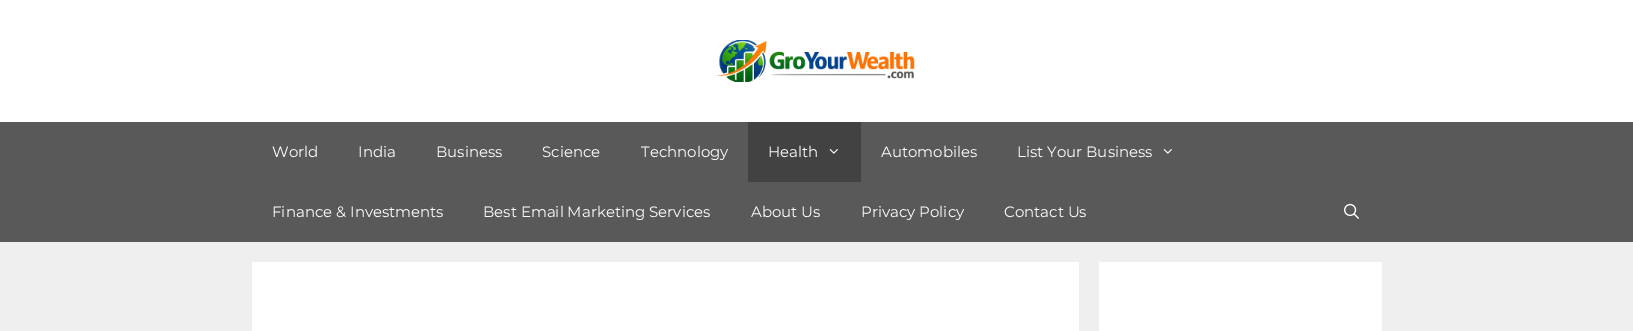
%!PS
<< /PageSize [1633 331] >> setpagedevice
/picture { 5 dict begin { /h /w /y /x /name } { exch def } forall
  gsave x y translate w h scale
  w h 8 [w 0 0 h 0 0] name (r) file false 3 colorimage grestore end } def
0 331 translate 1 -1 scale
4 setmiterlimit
0.937 setgray
0 0 1633 331 rectfill
1 setgray
0 0 1633 122 rectfill
(img1.rgb) 716 40 199 42 picture
0.349 setgray
0 122 1633 120 rectfill
/Montserrat-Regular [15 0 0 -15 0 0] selectfont
1 setgray
272 157 moveto (World) show
358 157 moveto (India) show
436 157 moveto (Business) show
542 157 moveto (Science) show
641 157 moveto (Technology) show
0.259 setgray
748 122 113 60 rectfill
1 setgray
768 157 moveto (Health) show
(img2.rgb) 829 149 9 5 picture
881 157 moveto (Automobiles) show
1017 157 moveto (List Your Business) show
(img3.rgb) 1163 149 9 5 picture
272 217 moveto (Finance & Investments) show
483 217 moveto (Best Email Marketing Services) show
751 217 moveto (About Us) show
861 217 moveto (Privacy Policy) show
1004 217 moveto (Contact Us) show
(img4.rgb) 1344 203 15 16 picture
252 262 827 69 rectfill
1099 262 283 69 rectfill
showpage
